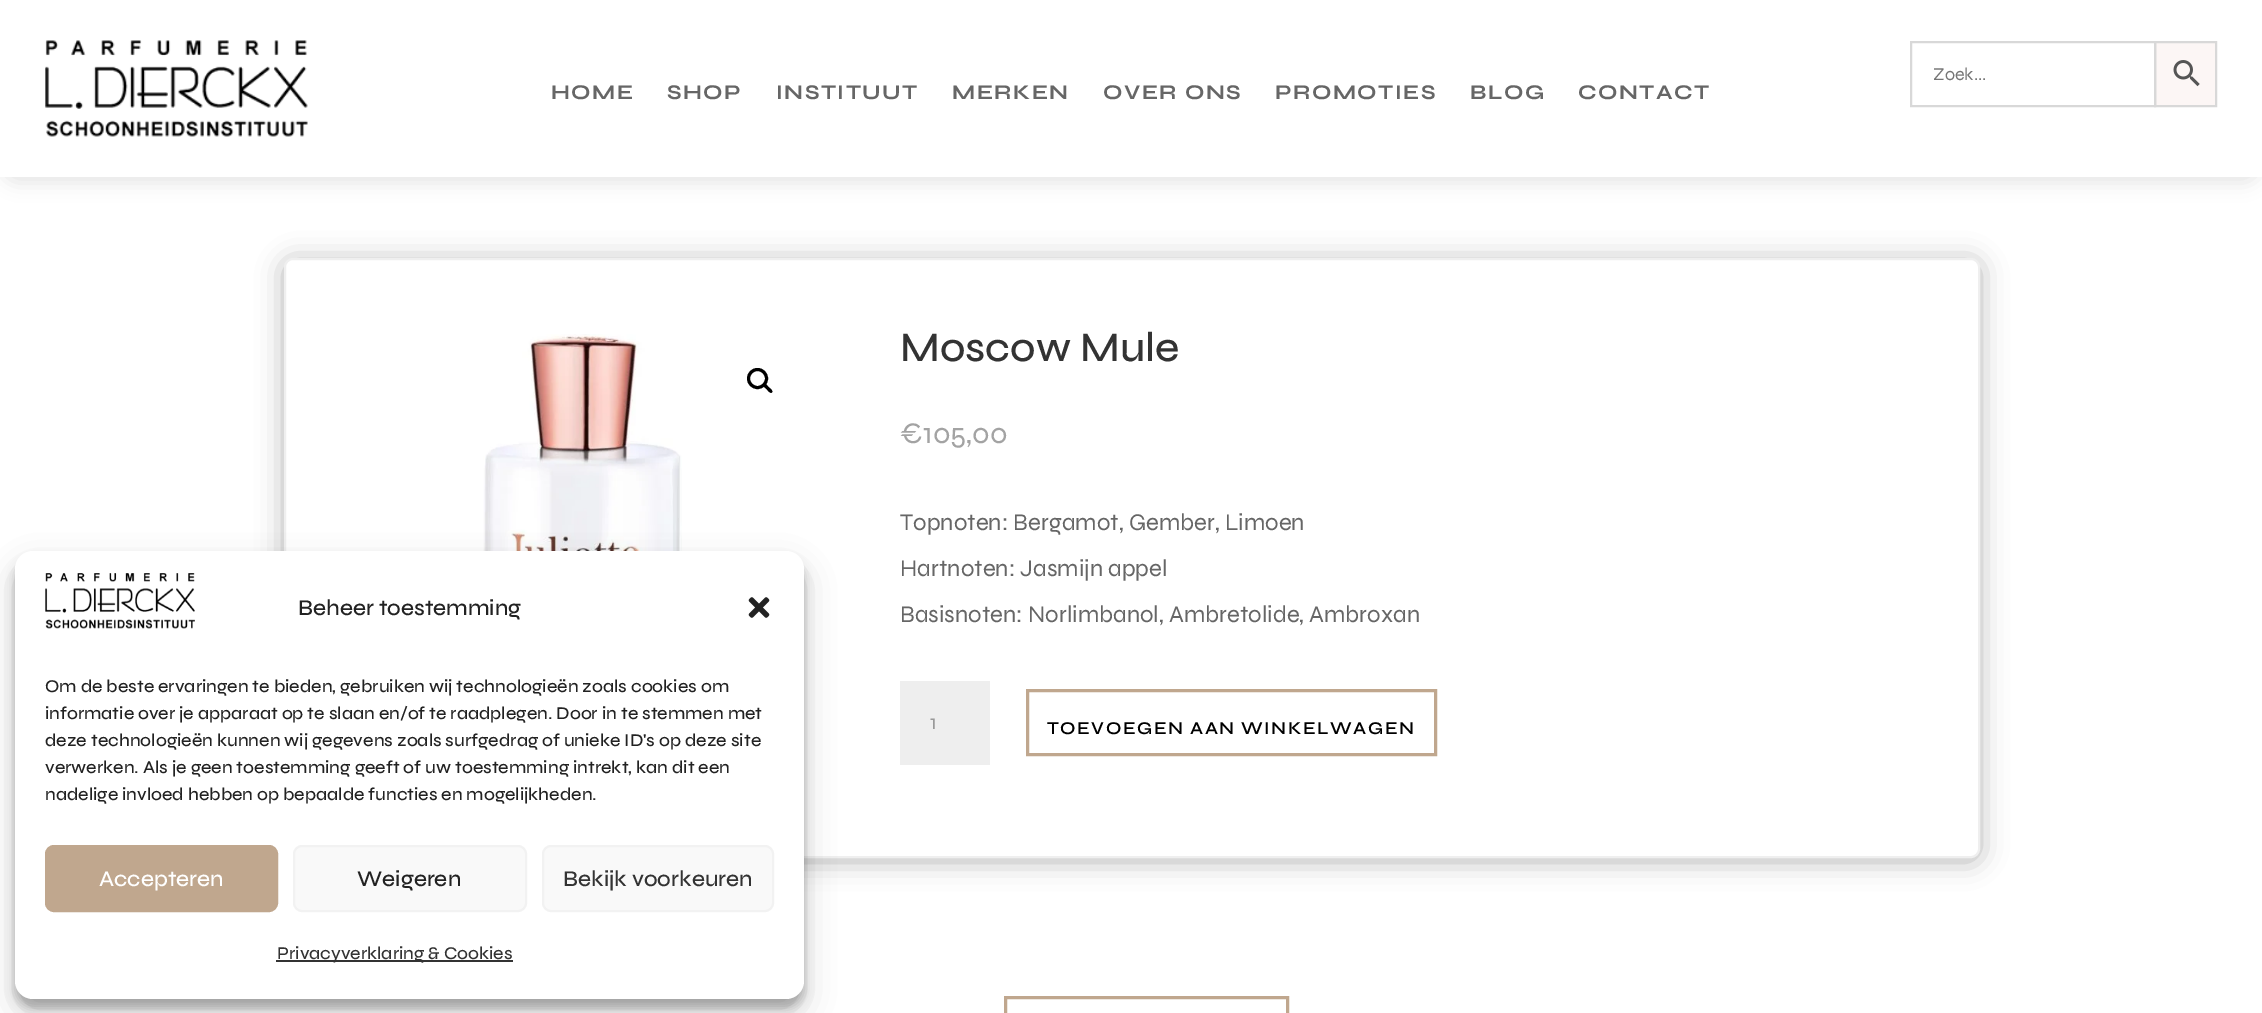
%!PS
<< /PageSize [2262 1013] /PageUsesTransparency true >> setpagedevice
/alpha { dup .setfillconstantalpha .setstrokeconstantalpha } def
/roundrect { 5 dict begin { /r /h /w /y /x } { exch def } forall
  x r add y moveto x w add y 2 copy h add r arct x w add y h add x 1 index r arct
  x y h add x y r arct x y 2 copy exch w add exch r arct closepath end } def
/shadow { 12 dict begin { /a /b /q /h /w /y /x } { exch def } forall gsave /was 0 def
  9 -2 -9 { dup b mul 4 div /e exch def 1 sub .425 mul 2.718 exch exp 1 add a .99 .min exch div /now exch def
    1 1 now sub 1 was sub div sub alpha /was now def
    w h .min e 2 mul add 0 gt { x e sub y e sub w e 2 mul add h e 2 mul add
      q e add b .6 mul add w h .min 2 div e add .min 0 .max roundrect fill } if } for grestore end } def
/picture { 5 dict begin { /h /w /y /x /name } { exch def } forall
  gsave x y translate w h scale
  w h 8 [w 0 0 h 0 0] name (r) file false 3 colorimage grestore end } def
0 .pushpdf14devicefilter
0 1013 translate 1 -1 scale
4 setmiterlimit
1 setgray
0 0 2262 1013 rectfill
0 setgray
0 6 2262 177 18 9 0.1 shadow
1 setgray
0 0 2262 177 rectfill
(img1.rgb) 45 40 263 97 picture
0.988 0.965 0.961 setrgbcolor
newpath 2155 42 moveto 2216 42 lineto 2216 106 lineto 2155 106 lineto closepath gsave fill grestore
0.847 setgray
2 setlinewidth
stroke
1911 42 244 64 rectstroke
/Syne-Regular [18 0 0 -18 0 0] selectfont
0.459 setgray
1933 80 moveto (Zoek...) show
(img2.rgb) 2173 60 27 27 picture
/Syne-Bold [21 0 0 -21 0 0] selectfont
0.4 setgray
551 99 moveto 1.5 0 (HOME) ashow
667 99 moveto 1.5 0 (SHOP) ashow
776 99 moveto 1.5 0 (INSTITUUT) ashow
952 99 moveto 1.5 0 (MERKEN) ashow
1103 99 moveto 1.5 0 (OVER ONS) ashow
1275 99 moveto 1.5 0 (PROMOTIES) ashow
1470 99 moveto 1.5 0 (BLOG) ashow
1578 99 moveto 1.5 0 (CONTACT) ashow
gsave
newpath 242 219 moveto 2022 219 lineto 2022 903 lineto 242 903 lineto closepath 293 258 moveto 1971 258 lineto 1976 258 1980 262 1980 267 curveto 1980 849 lineto 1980 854 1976 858 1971 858 curveto 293 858 lineto 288 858 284 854 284 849 curveto 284 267 lineto 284 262 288 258 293 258 curveto closepath eoclip newpath
0 setgray
284 261 1696 600 9 13.5 0.3 shadow
grestore
0.937 setgray
285 259 1694 598 8 roundrect stroke
(img3.rgb) 483 334 199 217 picture
0 setgray
3 setlinewidth
newpath 757.5 378.5 9 0 360 arc closepath stroke
newpath 763.5 384 moveto 765 382 767.5 386 768.5 387 curveto 769.5 388 773.5 390.5 772 392.5 curveto 770 394 767.5 390 766.5 389 curveto 765.5 388 761.5 385.5 763.5 384 curveto closepath fill
/Syne-Medium [42 0 0 -42 0 0] selectfont
0.2 setgray
900 361 moveto (Moscow Mule) show
/Syne-Regular [30 0 0 -30 0 0] selectfont
0.639 setgray
900 443 moveto (€105,00) show
/Syne-Regular [24 0 0 -24 0 0] selectfont
0.4 setgray
900 530 moveto (Topnoten: Bergamot, Gember, Limoen) show
900 576 moveto (Hartnoten: Jasmijn appel) show
900 622 moveto (Basisnoten: Norlimbanol, Ambretolide, Ambroxan) show
0.933 setgray
900 681 90 84 rectfill
/Syne-Regular [21 0 0 -21 0 0] selectfont
0.6 setgray
930 729 moveto (1) show
0.753 0.655 0.557 setrgbcolor
1027.5 690.5 408 64 rectstroke
/Syne-SemiBold [18 0 0 -18 0 0] selectfont
0 setgray
1047 734 moveto 1.5 0 (TOEVOEGEN AAN WINKELWAGEN) ashow
0.753 0.655 0.557 setrgbcolor
1005.5 997.5 282 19 rectstroke
0 setgray
15 560 789 448 18 4.5 0.23 shadow
15 566 789 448 18 15 0.19 shadow
1 setgray
15 551 789 448 18 roundrect fill
(img4.rgb) 45 573 150 56 picture
/Syne-Medium [22.5 0 0 -22.5 0 0] selectfont
0.133 setgray
298 615 moveto (Beheer toestemming) show
(img5.rgb) 748 597 22 21 picture
/Syne-Medium [18 0 0 -18 0 0] selectfont
45 692 moveto (Om de beste ervaringen te bieden, gebruiken wij technologieën zoals cookies om) show
45 719 moveto (informatie over je apparaat op te slaan en/of te raadplegen. Door in te stemmen met) show
45 746 moveto (deze technologieën kunnen wij gegevens zoals surfgedrag of unieke ID's op deze site) show
45 773 moveto (verwerken. Als je geen toestemming geeft of uw toestemming intrekt, kan dit een) show
45 800 moveto (nadelige invloed hebben op bepaalde functies en mogelijkheden.) show
0.753 0.655 0.557 setrgbcolor
46 846 231 65 8 roundrect gsave fill grestore
2 setlinewidth
stroke
/Syne-Medium [22.5 0 0 -22.5 0 0] selectfont
1 setgray
99 886 moveto (Accepteren) show
0.976 setgray
294 846 232 65 8 roundrect gsave fill grestore
0.949 setgray
stroke
0.133 setgray
357 886 moveto (Weigeren) show
0.976 setgray
543 846 230 65 8 roundrect gsave fill grestore
0.949 setgray
stroke
0.2 setgray
563 886 moveto (Bekijk voorkeuren) show
276 960 237 2 rectfill
/Syne-Medium [18 0 0 -18 0 0] selectfont
277 959 moveto (Privacyverklaring & Cookies) show
.poppdf14devicefilter showpage
